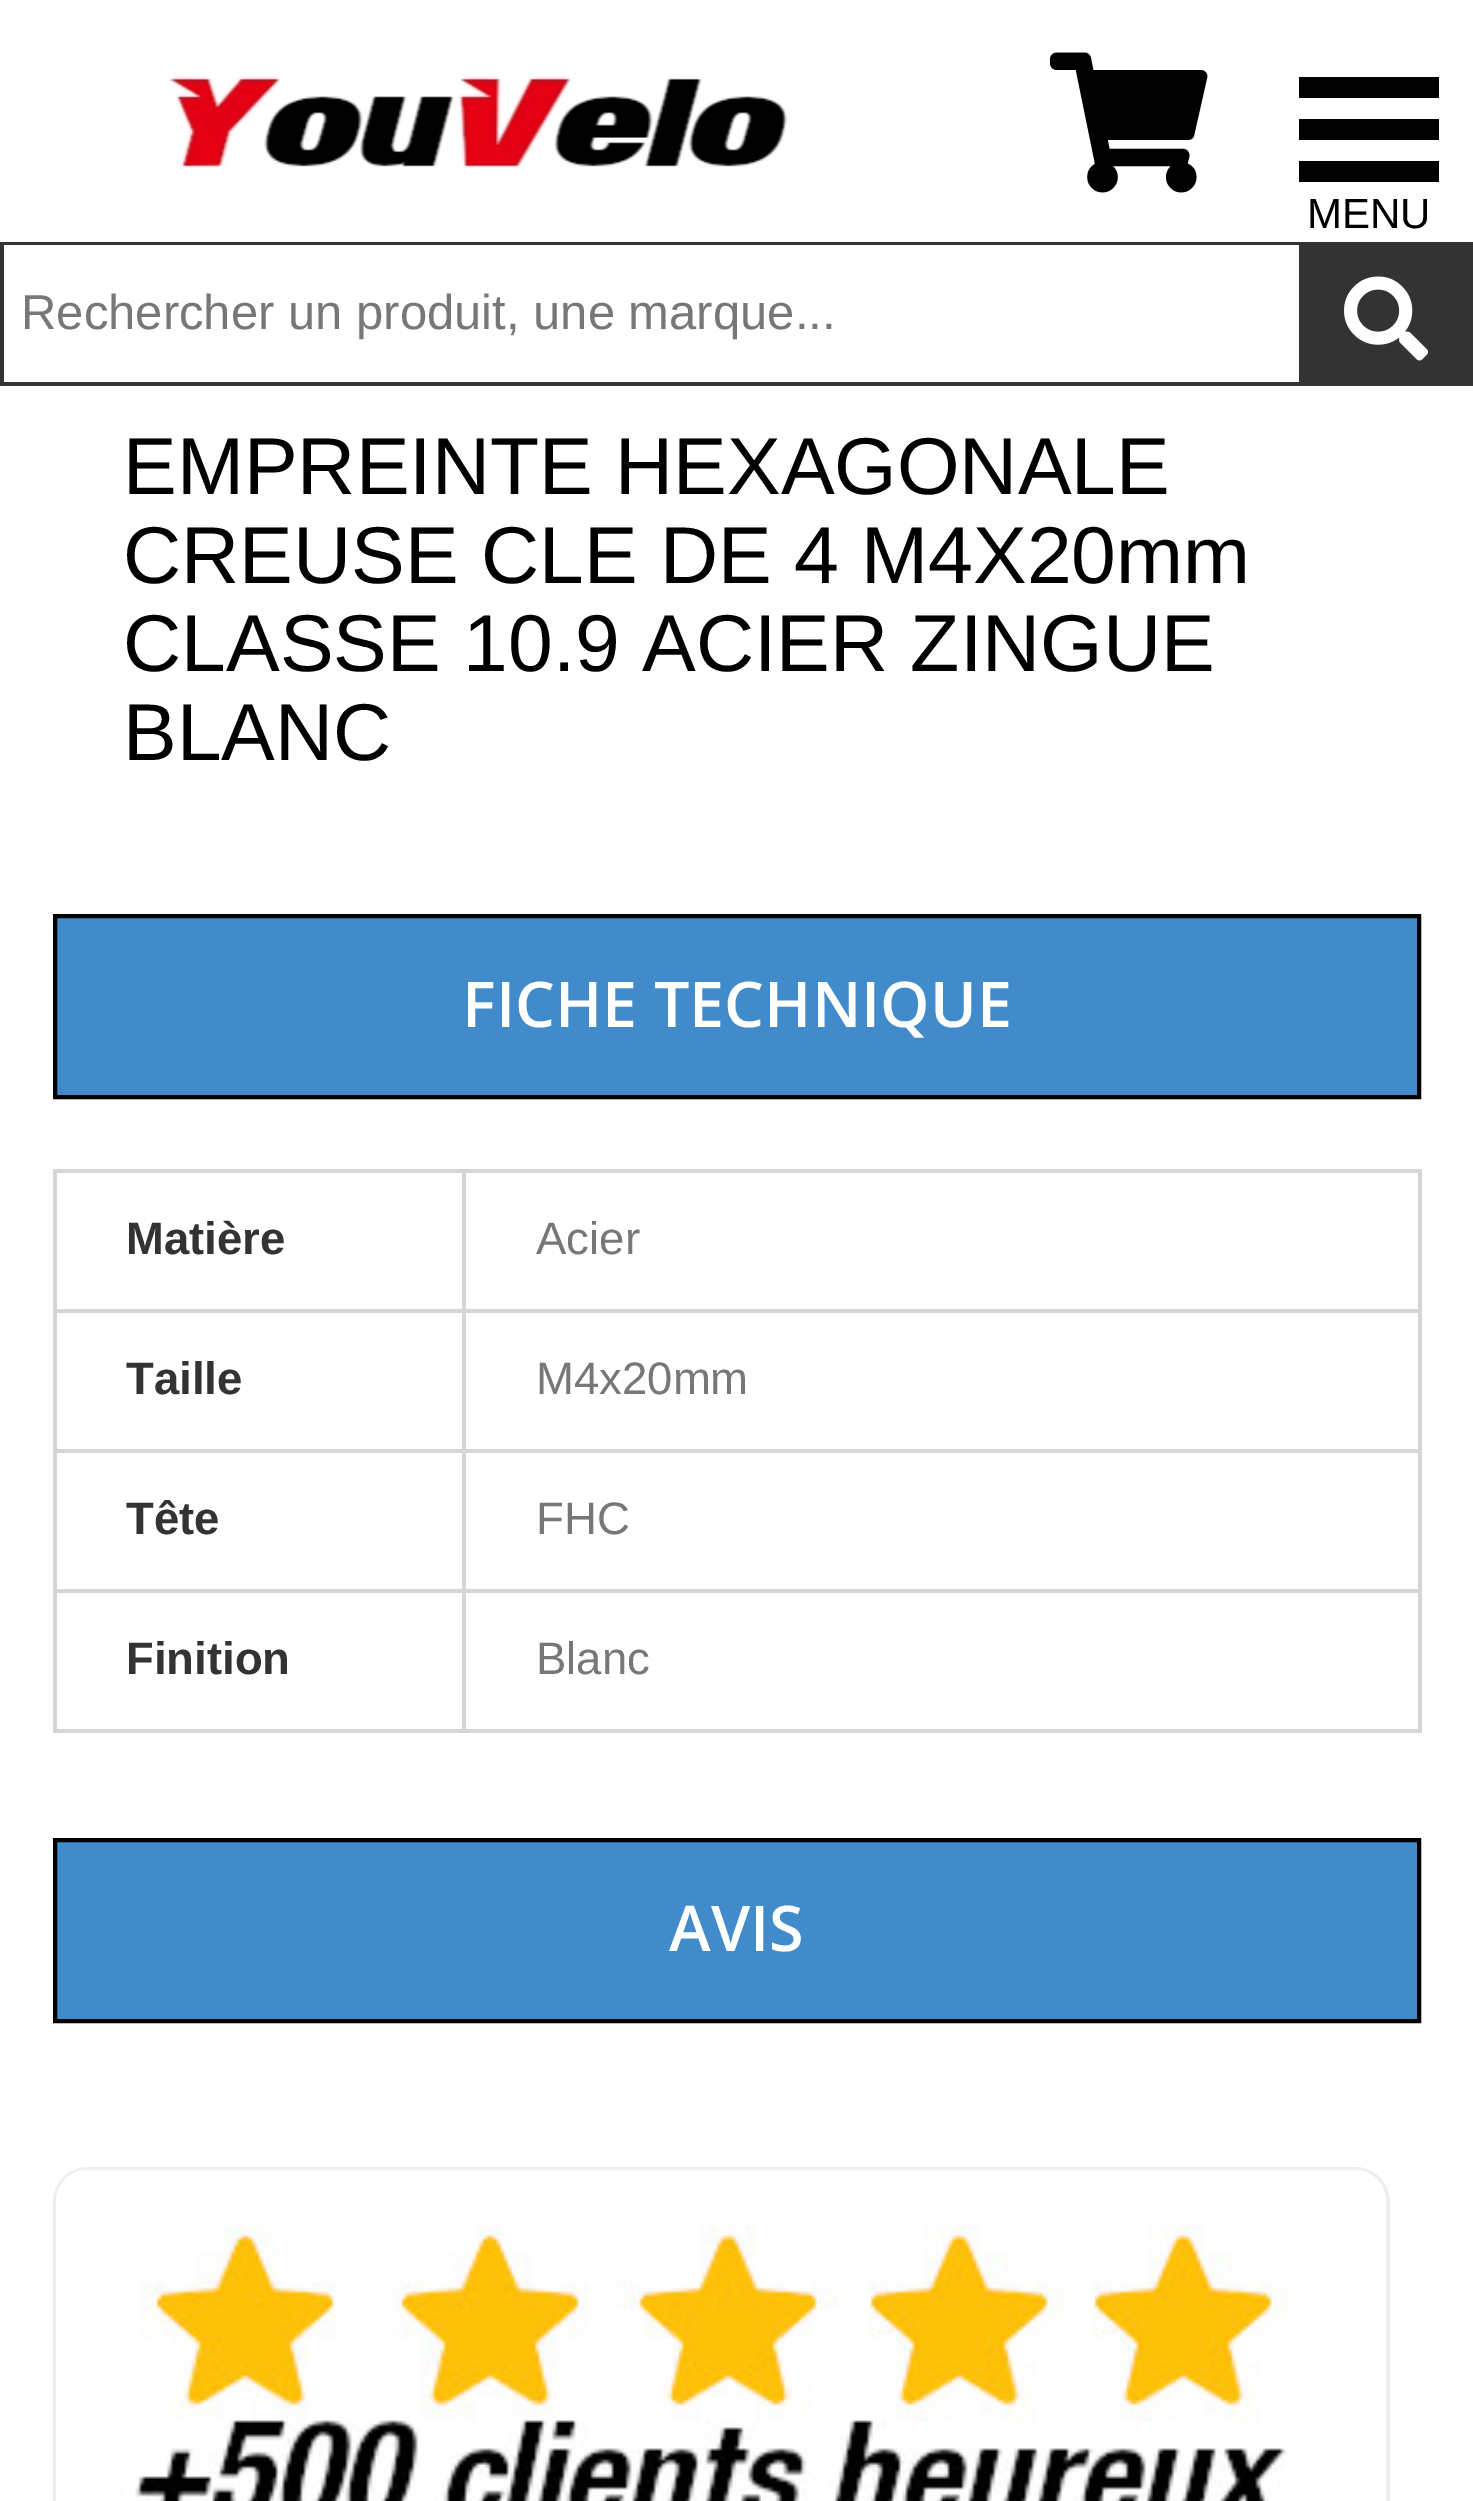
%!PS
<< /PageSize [1473 2501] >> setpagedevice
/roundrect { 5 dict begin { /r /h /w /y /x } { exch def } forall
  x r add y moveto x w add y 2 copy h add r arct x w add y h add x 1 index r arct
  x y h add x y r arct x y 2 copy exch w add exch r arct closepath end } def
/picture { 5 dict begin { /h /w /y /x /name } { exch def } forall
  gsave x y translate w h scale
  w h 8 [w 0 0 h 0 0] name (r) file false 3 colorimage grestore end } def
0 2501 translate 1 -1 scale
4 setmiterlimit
1 setgray
0 0 1473 2501 rectfill
0.2 setgray
0 242 1473 3 rectfill
(img1.rgb) 169 76 618 92 picture
(img2.rgb) 1050 52 158 141 picture
0 setgray
1299 161 140 21 rectfill
1299 119 140 21 rectfill
1299 77 140 21 rectfill
/LiberationSans-Regular [42 0 0 -42 0 0] selectfont
1307 228 moveto (MENU) show
0.2 setgray
0 382 1473 4 rectfill
0 245 4 140 rectfill
/LiberationSans-Regular [49 0 0 -49 0 0] selectfont
0.467 setgray
21 329 moveto (Rechercher un produit, une marque...) show
0.2 setgray
1299 245 174 137 rectfill
(img3.rgb) 1344 276 84 85 picture
/LiberationSans-Regular [80.5 0 0 -80.5 0 0] selectfont
0 setgray
123 494 moveto (EMPREINTE HEXAGONALE) show
123 583 moveto (CREUSE CLE DE 4 M4X20mm) show
123 671 moveto (CLASSE 10.9 ACIER ZINGUE) show
123 760 moveto (BLANC) show
0.259 0.545 0.792 setrgbcolor
newpath 55 916 moveto 1419 916 lineto 1419 1097 lineto 55 1097 lineto closepath gsave fill grestore
0 setgray
4 setlinewidth
stroke
/OpenSans-SemiBold [63 0 0 -63 0 0] selectfont
1 setgray
462 1027 moveto (FICHE TECHNIQUE) show
0.839 0.831 0.831 setrgbcolor
53 1729 1368 4 rectfill
53 1169 1368 4 rectfill
/LiberationSans-Bold [45.5 0 0 -45.5 0 0] selectfont
0.2 setgray
126 1254 moveto (Matière) show
/LiberationSans-Regular [45.5 0 0 -45.5 0 0] selectfont
0.467 setgray
536 1254 moveto (Acier) show
0.839 0.831 0.831 setrgbcolor
53 1309 1368 4 rectfill
/LiberationSans-Bold [45.5 0 0 -45.5 0 0] selectfont
0.2 setgray
126 1394 moveto (Taille) show
/LiberationSans-Regular [45.5 0 0 -45.5 0 0] selectfont
0.467 setgray
536 1394 moveto (M4x20mm) show
0.839 0.831 0.831 setrgbcolor
53 1449 1368 4 rectfill
/LiberationSans-Bold [45.5 0 0 -45.5 0 0] selectfont
0.2 setgray
126 1534 moveto (Tête) show
/LiberationSans-Regular [45.5 0 0 -45.5 0 0] selectfont
0.467 setgray
536 1534 moveto (FHC) show
0.839 0.831 0.831 setrgbcolor
53 1589 1368 4 rectfill
462 1169 4 564 rectfill
53 1169 4 564 rectfill
/LiberationSans-Bold [45.5 0 0 -45.5 0 0] selectfont
0.2 setgray
126 1674 moveto (Finition) show
0.839 0.831 0.831 setrgbcolor
1418 1169 4 564 rectfill
/LiberationSans-Regular [45.5 0 0 -45.5 0 0] selectfont
0.467 setgray
536 1674 moveto (Blanc) show
0.259 0.545 0.792 setrgbcolor
newpath 55 1840 moveto 1419 1840 lineto 1419 2021 lineto 55 2021 lineto closepath gsave fill grestore
0 setgray
stroke
/OpenSans-SemiBold [63 0 0 -63 0 0] selectfont
1 setgray
669 1951 moveto (AVIS) show
0.933 setgray
55 2169 1333 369 33 roundrect stroke
(img4.rgb) 56 2169 1330 332 picture
showpage
